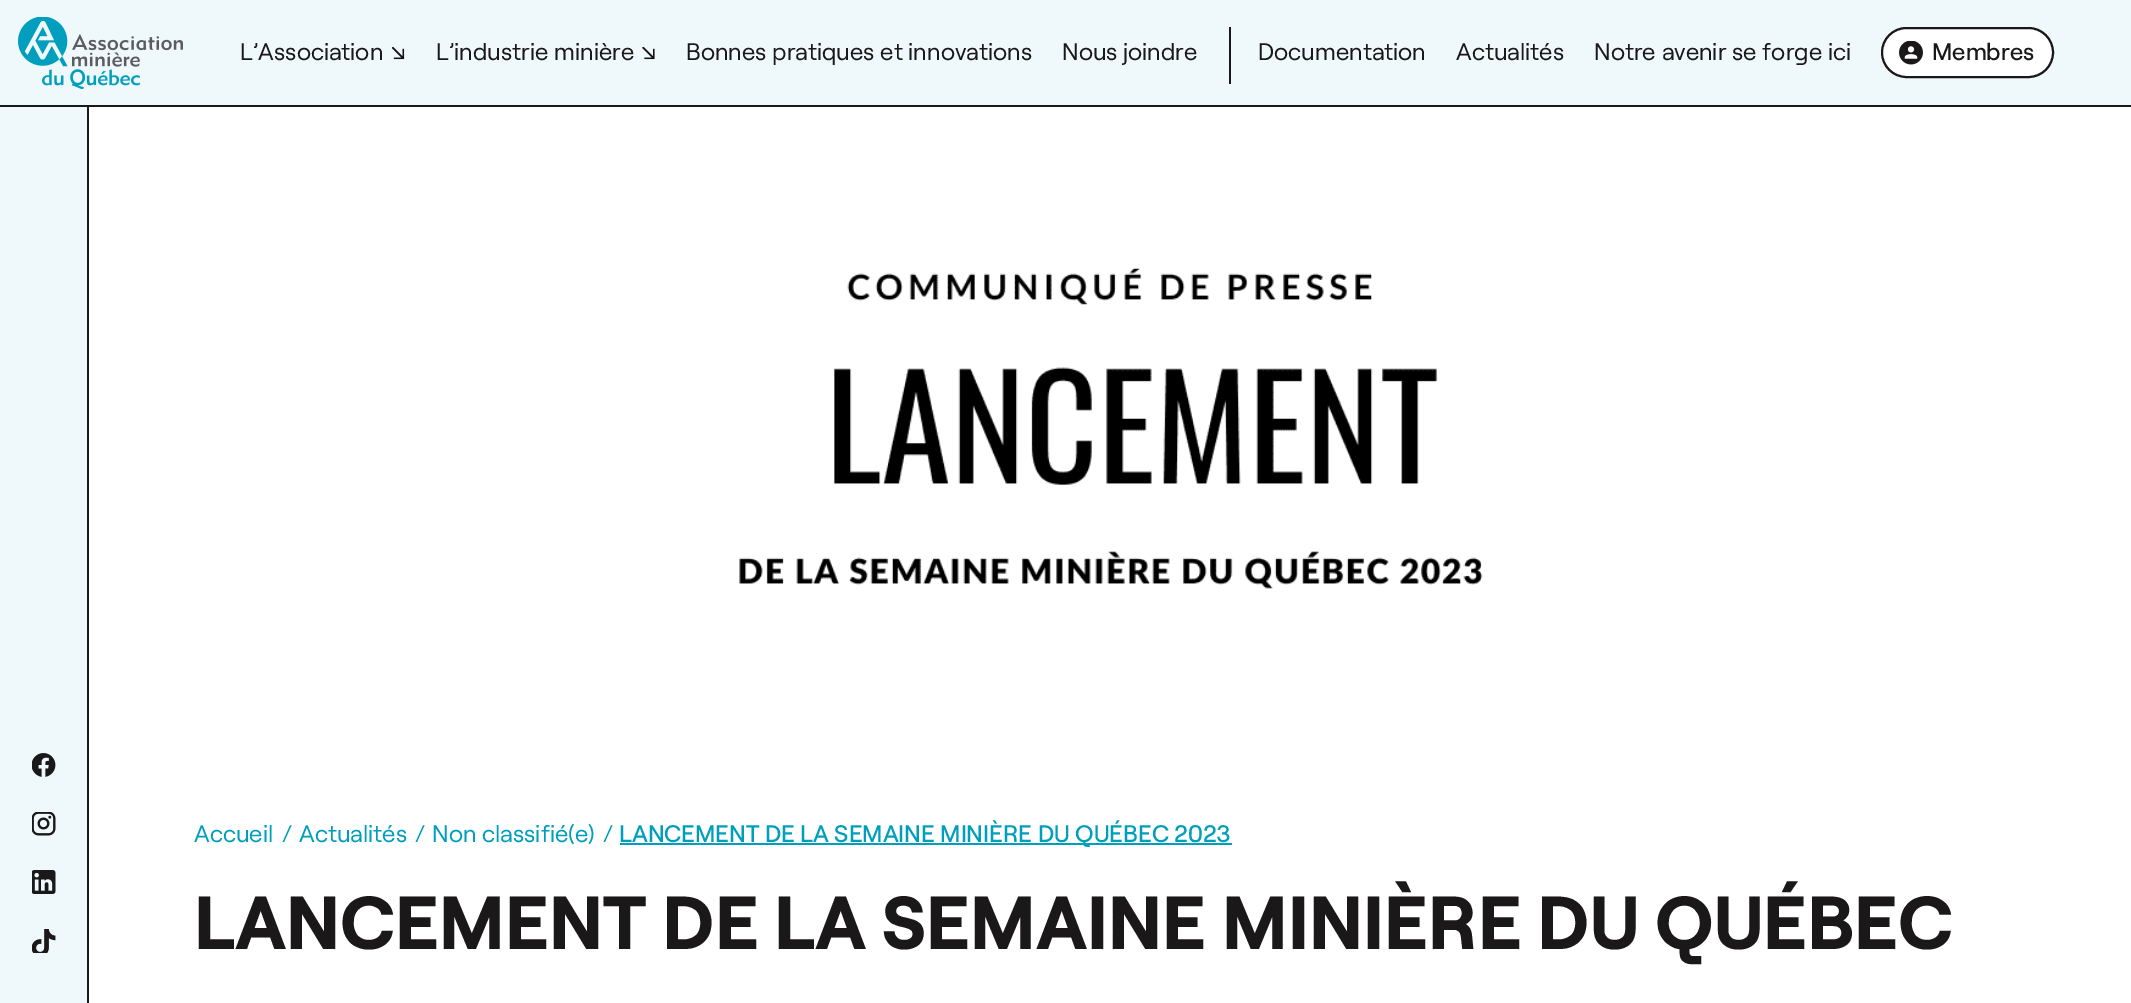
%!PS
<< /PageSize [2131 1003] >> setpagedevice
/roundrect { 5 dict begin { /r /h /w /y /x } { exch def } forall
  x r add y moveto x w add y 2 copy h add r arct x w add y h add x 1 index r arct
  x y h add x y r arct x y 2 copy exch w add exch r arct closepath end } def
/picture { 5 dict begin { /h /w /y /x /name } { exch def } forall
  gsave x y translate w h scale
  w h 8 [w 0 0 h 0 0] name (r) file false 3 colorimage grestore end } def
0 1003 translate 1 -1 scale
4 setmiterlimit
1 setgray
0 0 2131 1003 rectfill
0.937 0.976 0.984 setrgbcolor
0 0 2131 105 rectfill
(img1.rgb) 18 17 165 72 picture
/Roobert-Regular [24 0 0 -24 0 0] selectfont
0.102 0.094 0.094 setrgbcolor
240 60 moveto (L’Association) show
(img2.rgb) 392 47 13 13 picture
436 60 moveto (L’industrie minière) show
(img3.rgb) 642 47 13 13 picture
686 60 moveto (Bonnes pratiques et innovations) show
1062 60 moveto (Nous joindre) show
1229 27 2 57 rectfill
1258 60 moveto (Documentation) show
1456 60 moveto (Actualités) show
1594 60 moveto (Notre avenir se forge ici) show
1 setgray
1882 28 171 49 24.5 roundrect gsave fill grestore
0.102 0.094 0.094 setrgbcolor
2 setlinewidth
stroke
(img4.rgb) 1899 41 24 24 picture
/Roobert-Medium [24 0 0 -24 0 0] selectfont
1932 60 moveto (Membres) show
0 105 2131 2 rectfill
0.937 0.976 0.984 setrgbcolor
0 107 87 896 rectfill
0.102 0.094 0.094 setrgbcolor
87 107 2 896 rectfill
(img5.rgb) 32 753 24 24 picture
(img6.rgb) 32 812 24 24 picture
(img7.rgb) 32 870 24 24 picture
(img8.rgb) 32 929 24 24 picture
(img9.rgb) 739 267 744 322 picture
/Roobert-Regular [24 0 0 -24 0 0] selectfont
0 0.62 0.741 setrgbcolor
194 842 moveto (Accueil) show
282 842 moveto (/) show
299 842 moveto (Actualités) show
415 842 moveto (/) show
432 842 moveto (Non classifié\(e\)) show
603 842 moveto (/) show
620 843 612 2 rectfill
/Roobert-Medium [24 0 0 -24 0 0] selectfont
619 842 moveto (LANCEMENT DE LA SEMAINE MINIÈRE DU QUÉBEC 2023) show
/Roobert-Bold [75 0 0 -75 0 0] selectfont
0.102 0.094 0.094 setrgbcolor
194 949 moveto (LANCEMENT DE LA SEMAINE MINIÈRE DU QUÉBEC) show
showpage
